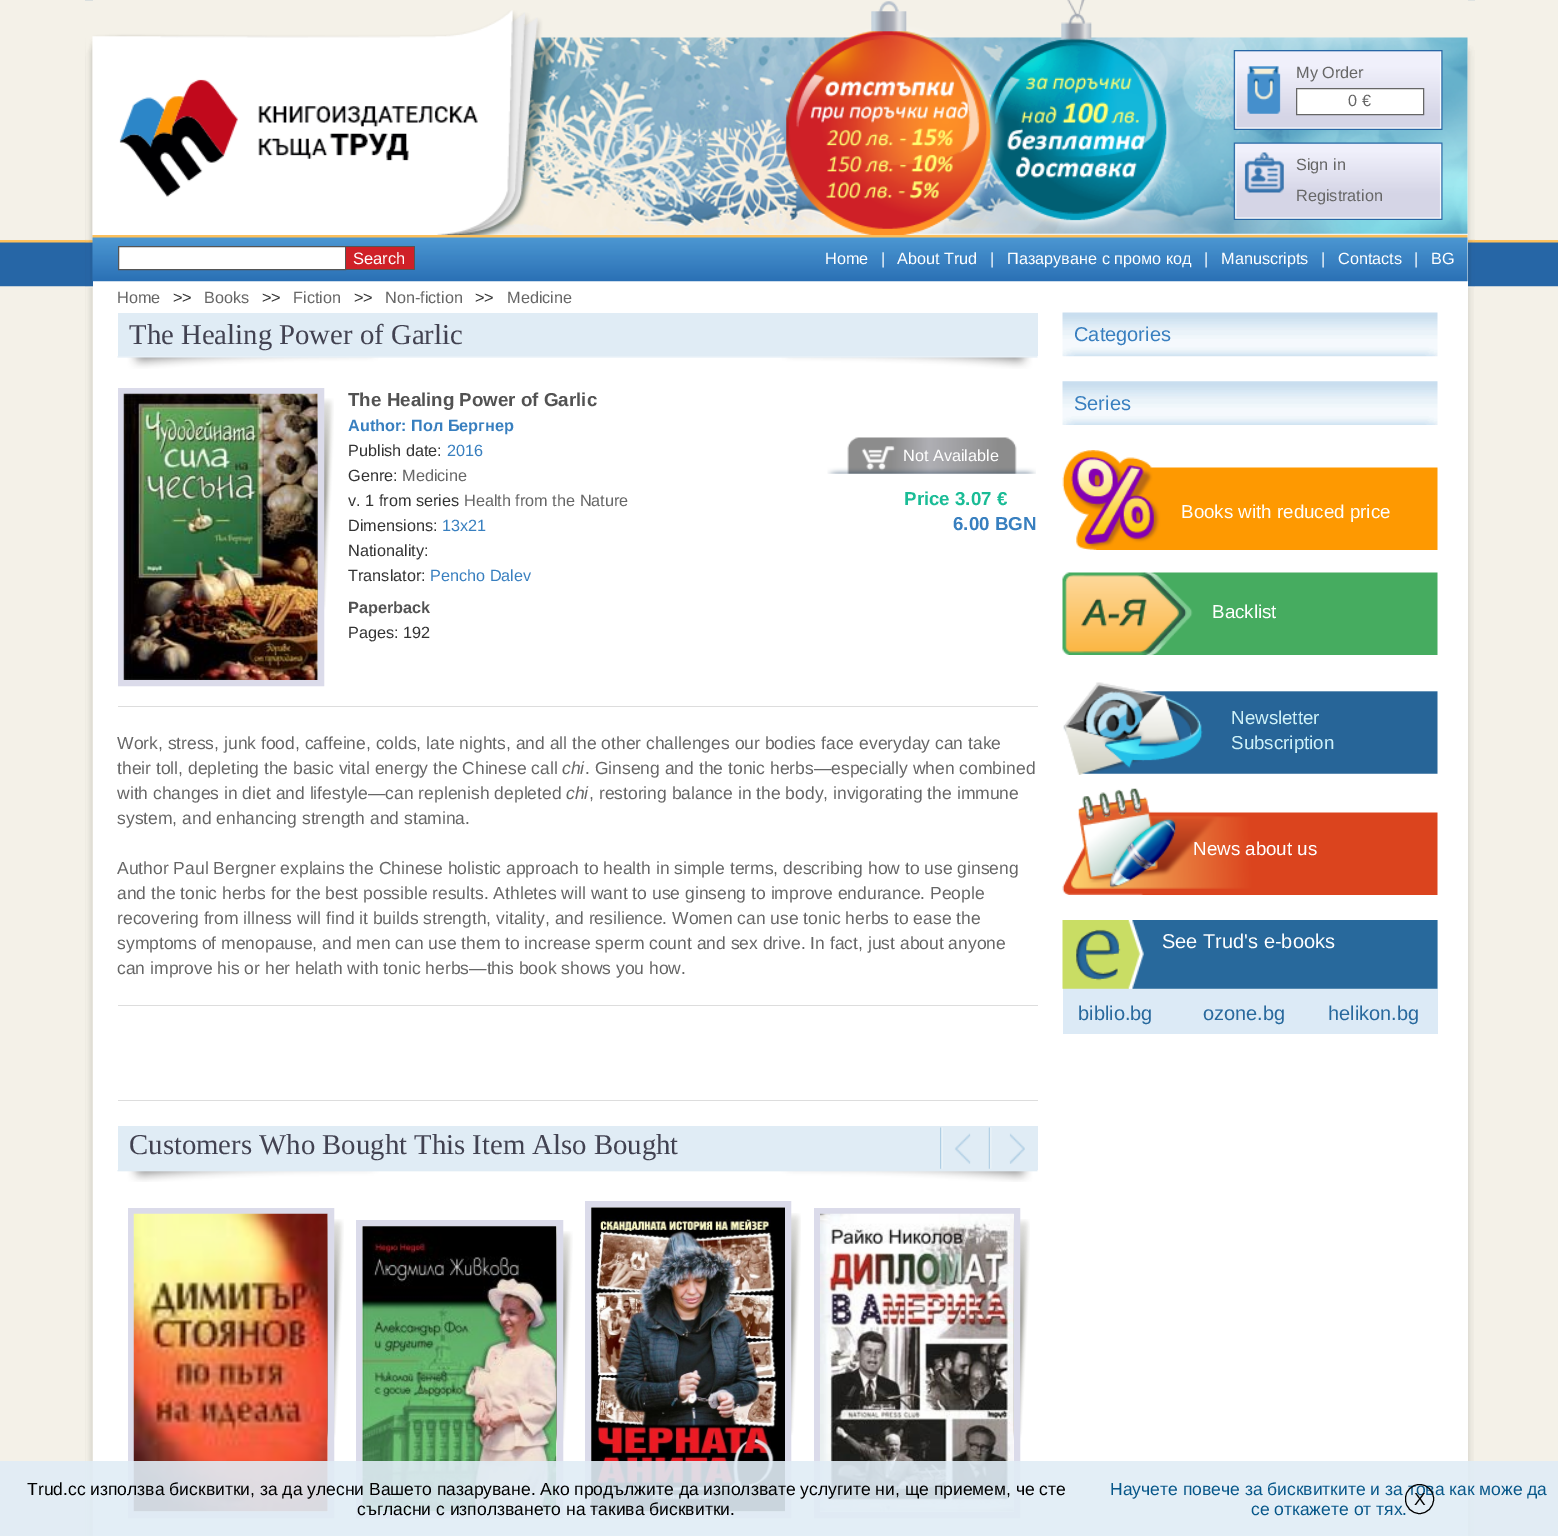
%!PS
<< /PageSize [1558 1536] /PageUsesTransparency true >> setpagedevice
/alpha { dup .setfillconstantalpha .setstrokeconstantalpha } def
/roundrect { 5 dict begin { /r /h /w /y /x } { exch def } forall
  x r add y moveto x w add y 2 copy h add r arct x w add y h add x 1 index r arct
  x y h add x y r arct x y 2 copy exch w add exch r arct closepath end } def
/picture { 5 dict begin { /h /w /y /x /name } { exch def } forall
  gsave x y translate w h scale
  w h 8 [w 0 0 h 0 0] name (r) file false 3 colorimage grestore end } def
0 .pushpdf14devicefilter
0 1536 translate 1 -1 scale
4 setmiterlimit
0.957 0.945 0.91 setrgbcolor
0 0 1558 1536 rectfill
(img1.rgb) 0 240 1558 47 picture
(img2.rgb) 85 0 8 287 picture
(img3.rgb) 1468 0 7 287 picture
(img5.rgb) 467 37 1001 197 picture
(img4.rgb) 786 0 391 235 picture
93 240 1375 41 rectfill
(img6.rgb) 92 10 463 225 picture
(img7.rgb) 1233 50 210 80 picture
/LiberationSans-Regular [16.25 0 0 -16.25 0 0] selectfont
0.4 setgray
1296 78 moveto (My Order) show
1 setgray
newpath 1296.5 88.5 moveto 1423.5 88.5 lineto 1423.5 114.5 lineto 1296.5 114.5 lineto closepath gsave fill grestore
0.4 setgray
stroke
1348 106 moveto (0 €) show
(img8.rgb) 1233 142 210 78 picture
1296 170 moveto (Sign in) show
1296 201 moveto (Registration) show
1 setgray
93 281 1375 19 rectfill
(img9.rgb) 92 235 1376 47 picture
newpath 118.5 246.5 moveto 345.5 246.5 lineto 345.5 269.5 lineto 118.5 269.5 lineto closepath gsave fill grestore
0.333 setgray
stroke
0.812 0.125 0.153 setrgbcolor
346 247 68 22 rectfill
0.333 setgray
346 246 69 1 rectfill
414 246 1 24 rectfill
346 269 69 1 rectfill
/LiberationSans-Regular [16.5 0 0 -16.5 0 0] selectfont
1 setgray
353 264 moveto (Search) show
/LiberationSans-Regular [16.25 0 0 -16.25 0 0] selectfont
825 264 moveto (Home) show
881 264 moveto (|) show
897 264 moveto (About Trud) show
990 264 moveto (|) show
1007 264 moveto (Пазаруване с промо код) show
1204 264 moveto (|) show
1221 264 moveto (Manuscripts) show
1321 264 moveto (|) show
1338 264 moveto (Contacts) show
1414 264 moveto (|) show
1431 264 moveto (BG) show
(img10.rgb) 85 287 8 1249 picture
(img11.rgb) 1468 287 6 1249 picture
93 300 1375 1236 rectfill
0.4 setgray
117 303 moveto (Home) show
0.2 setgray
173 303 moveto (>>) show
0.4 setgray
204 303 moveto (Books) show
0.2 setgray
262 303 moveto (>>) show
0.4 setgray
293 303 moveto (Fiction) show
0.2 setgray
354 303 moveto (>>) show
0.4 setgray
385 303 moveto (Non-fiction) show
0.2 setgray
475 303 moveto (>>) show
0.4 setgray
507 303 moveto (Medicine) show
0.878 0.925 0.961 setrgbcolor
118 313 920 43 rectfill
/LiberationSerif-Regular [28.75 0 0 -28.75 0 0] selectfont
0.259 0.259 0.318 setrgbcolor
129 344 moveto (The Healing Power of Garlic) show
(img12.rgb) 117 356 921 13 picture
(img13.rgb) 317 398 17 214 picture
0.859 0.859 0.918 setrgbcolor
6 setlinewidth
121 391 200 292 rectstroke
(img14.rgb) 123 393 195 287 picture
/LiberationSans-Bold [18.75 0 0 -18.75 0 0] selectfont
0.322 setgray
348 406 moveto (The Healing Power of Garlic) show
/LiberationSans-Bold [16.25 0 0 -16.25 0 0] selectfont
0.22 0.498 0.749 setrgbcolor
348 431 moveto (Author: Пол Бергнер) show
/LiberationSans-Regular [16.25 0 0 -16.25 0 0] selectfont
0.2 setgray
348 456 moveto (Publish date:) show
0.22 0.498 0.749 setrgbcolor
447 456 moveto (2016) show
0.2 setgray
348 481 moveto (Genre:) show
0.4 setgray
402 481 moveto (Medicine) show
0.2 setgray
348 506 moveto (v. 1 from series) show
0.4 setgray
464 506 moveto (Health from the Nature) show
0.2 setgray
348 531 moveto (Dimensions:) show
0.22 0.498 0.749 setrgbcolor
442 531 moveto (13x21) show
0.2 setgray
348 556 moveto (Nationality:) show
348 581 moveto (Translator:) show
0.22 0.498 0.749 setrgbcolor
430 581 moveto (Pencho Dalev) show
/LiberationSans-Bold [16.25 0 0 -16.25 0 0] selectfont
0.322 setgray
348 613 moveto (Paperback) show
/LiberationSans-Regular [16.25 0 0 -16.25 0 0] selectfont
0.2 setgray
348 638 moveto (Pages: 192) show
(img15.rgb) 827 437 209 37 picture
1 setgray
903 461 moveto (Not Available) show
/LiberationSans-Bold [18.75 0 0 -18.75 0 0] selectfont
0.102 0.737 0.588 setrgbcolor
904 505 moveto (Price 3.07 €) show
0.22 0.498 0.749 setrgbcolor
953 530 moveto (6.00 BGN) show
0.867 setgray
118 706 920 1 rectfill
/LiberationSans-Regular [17.5 0 0 -17.5 0 0] selectfont
0.4 setgray
117 749 moveto (Work, stress, junk food, caffeine, colds, late nights, and all the other challenges our bodies face everyday can take) show
117 774 moveto (their toll, depleting the basic vital energy the Chinese call) show
/LiberationSans-Italic [17.5 0 0 -17.5 0 0] selectfont
562 774 moveto (chi) show
/LiberationSans-Regular [17.5 0 0 -17.5 0 0] selectfont
585 774 moveto (. Ginseng and the tonic herbs—especially when combined) show
117 799 moveto (with changes in diet and lifestyle—can replenish depleted) show
/LiberationSans-Italic [17.5 0 0 -17.5 0 0] selectfont
566 799 moveto (chi) show
/LiberationSans-Regular [17.5 0 0 -17.5 0 0] selectfont
589 799 moveto (, restoring balance in the body, invigorating the immune) show
117 824 moveto (system, and enhancing strength and stamina.) show
117 874 moveto (Author Paul Bergner explains the Chinese holistic approach to health in simple terms, describing how to use ginseng) show
117 899 moveto (and the tonic herbs for the best possible results. Athletes will want to use ginseng to improve endurance. People) show
117 924 moveto (recovering from illness will find it builds strength, vitality, and resilience. Women can use tonic herbs to ease the) show
117 949 moveto (symptoms of menopause, and men can use them to increase sperm count and sex drive. In fact, just about anyone) show
117 974 moveto (can improve his or her helath with tonic herbs—this book shows you how.) show
0.867 setgray
118 1005 920 1 rectfill
118 1100 920 1 rectfill
0.878 0.925 0.961 setrgbcolor
118 1126 920 44 rectfill
/LiberationSerif-Regular [28.75 0 0 -28.75 0 0] selectfont
0.259 0.259 0.318 setrgbcolor
129 1154 moveto (Customers Who Bought This Item Also Bought) show
(img16.rgb) 940 1127 31 42 picture
(img17.rgb) 988 1127 37 42 picture
(img18.rgb) 117 1170 921 12 picture
(img19.rgb) 327 1219 17 221 picture
0.859 0.859 0.918 setrgbcolor
131 1211 200 304 rectstroke
(img20.rgb) 133 1213 195 299 picture
(img21.rgb) 556 1231 17 212 picture
359 1223 201 292 rectstroke
(img22.rgb) 362 1226 195 286 picture
(img23.rgb) 791 1213 10 222 picture
588 1204 200 311 rectstroke
(img24.rgb) 591 1207 194 305 picture
(img25.rgb) 1013 1219 17 221 picture
817 1211 200 304 rectstroke
(img26.rgb) 820 1213 194 299 picture
(img27.rgb) 1062 312 376 45 picture
/LiberationSans-Regular [20 0 0 -20 0 0] selectfont
0.22 0.498 0.749 setrgbcolor
1074 341 moveto (Categories) show
(img28.rgb) 1062 381 376 44 picture
1074 410 moveto (Series) show
(img29.rgb) 1062 450 376 100 picture
/LiberationSans-Regular [18.75 0 0 -18.75 0 0] selectfont
1 setgray
1181 518 moveto (Books with reduced price) show
(img30.rgb) 1062 572 376 83 picture
1212 618 moveto (Backlist) show
(img31.rgb) 1063 682 375 93 picture
0.804 0.945 0.973 setrgbcolor
1231 724 moveto (Newsletter) show
1231 749 moveto (Subscription) show
(img32.rgb) 1062 788 376 107 picture
1 setgray
1193 855 moveto (News about us) show
0.863 0.918 0.965 setrgbcolor
1063 920 375 114 rectfill
(img33.rgb) 1062 920 376 69 picture
/LiberationSans-Regular [20 0 0 -20 0 0] selectfont
1 setgray
1162 948 moveto (See Trud's e-books) show
0.157 0.412 0.616 setrgbcolor
1078 1020 moveto (biblio.bg) show
1203 1020 moveto (ozone.bg) show
1328 1020 moveto (helikon.bg) show
0.9 alpha
0.878 0.925 0.961 setrgbcolor
0 1461 1558 75 rectfill
/LiberationSans-Regular [17.5 0 0 -17.5 0 0] selectfont
1 alpha
0 setgray
27 1495 moveto (Trud.cc използва бисквитки, за да улесни Вашето пазаруване. Ако продължите да използвате услугите ни, ще приемем, че сте) show
0.027 0.341 0.537 setrgbcolor
1110 1495 moveto (Научете повече за бисквитките и за това как може да) show
1251 1515 moveto (се откажете от тях.) show
0 setgray
1 setlinewidth
1405.5 1484.5 28 29 14 roundrect stroke
1414 1505 moveto (X) show
357 1515 moveto (съгласни с използването на такива бисквитки.) show
.poppdf14devicefilter showpage
